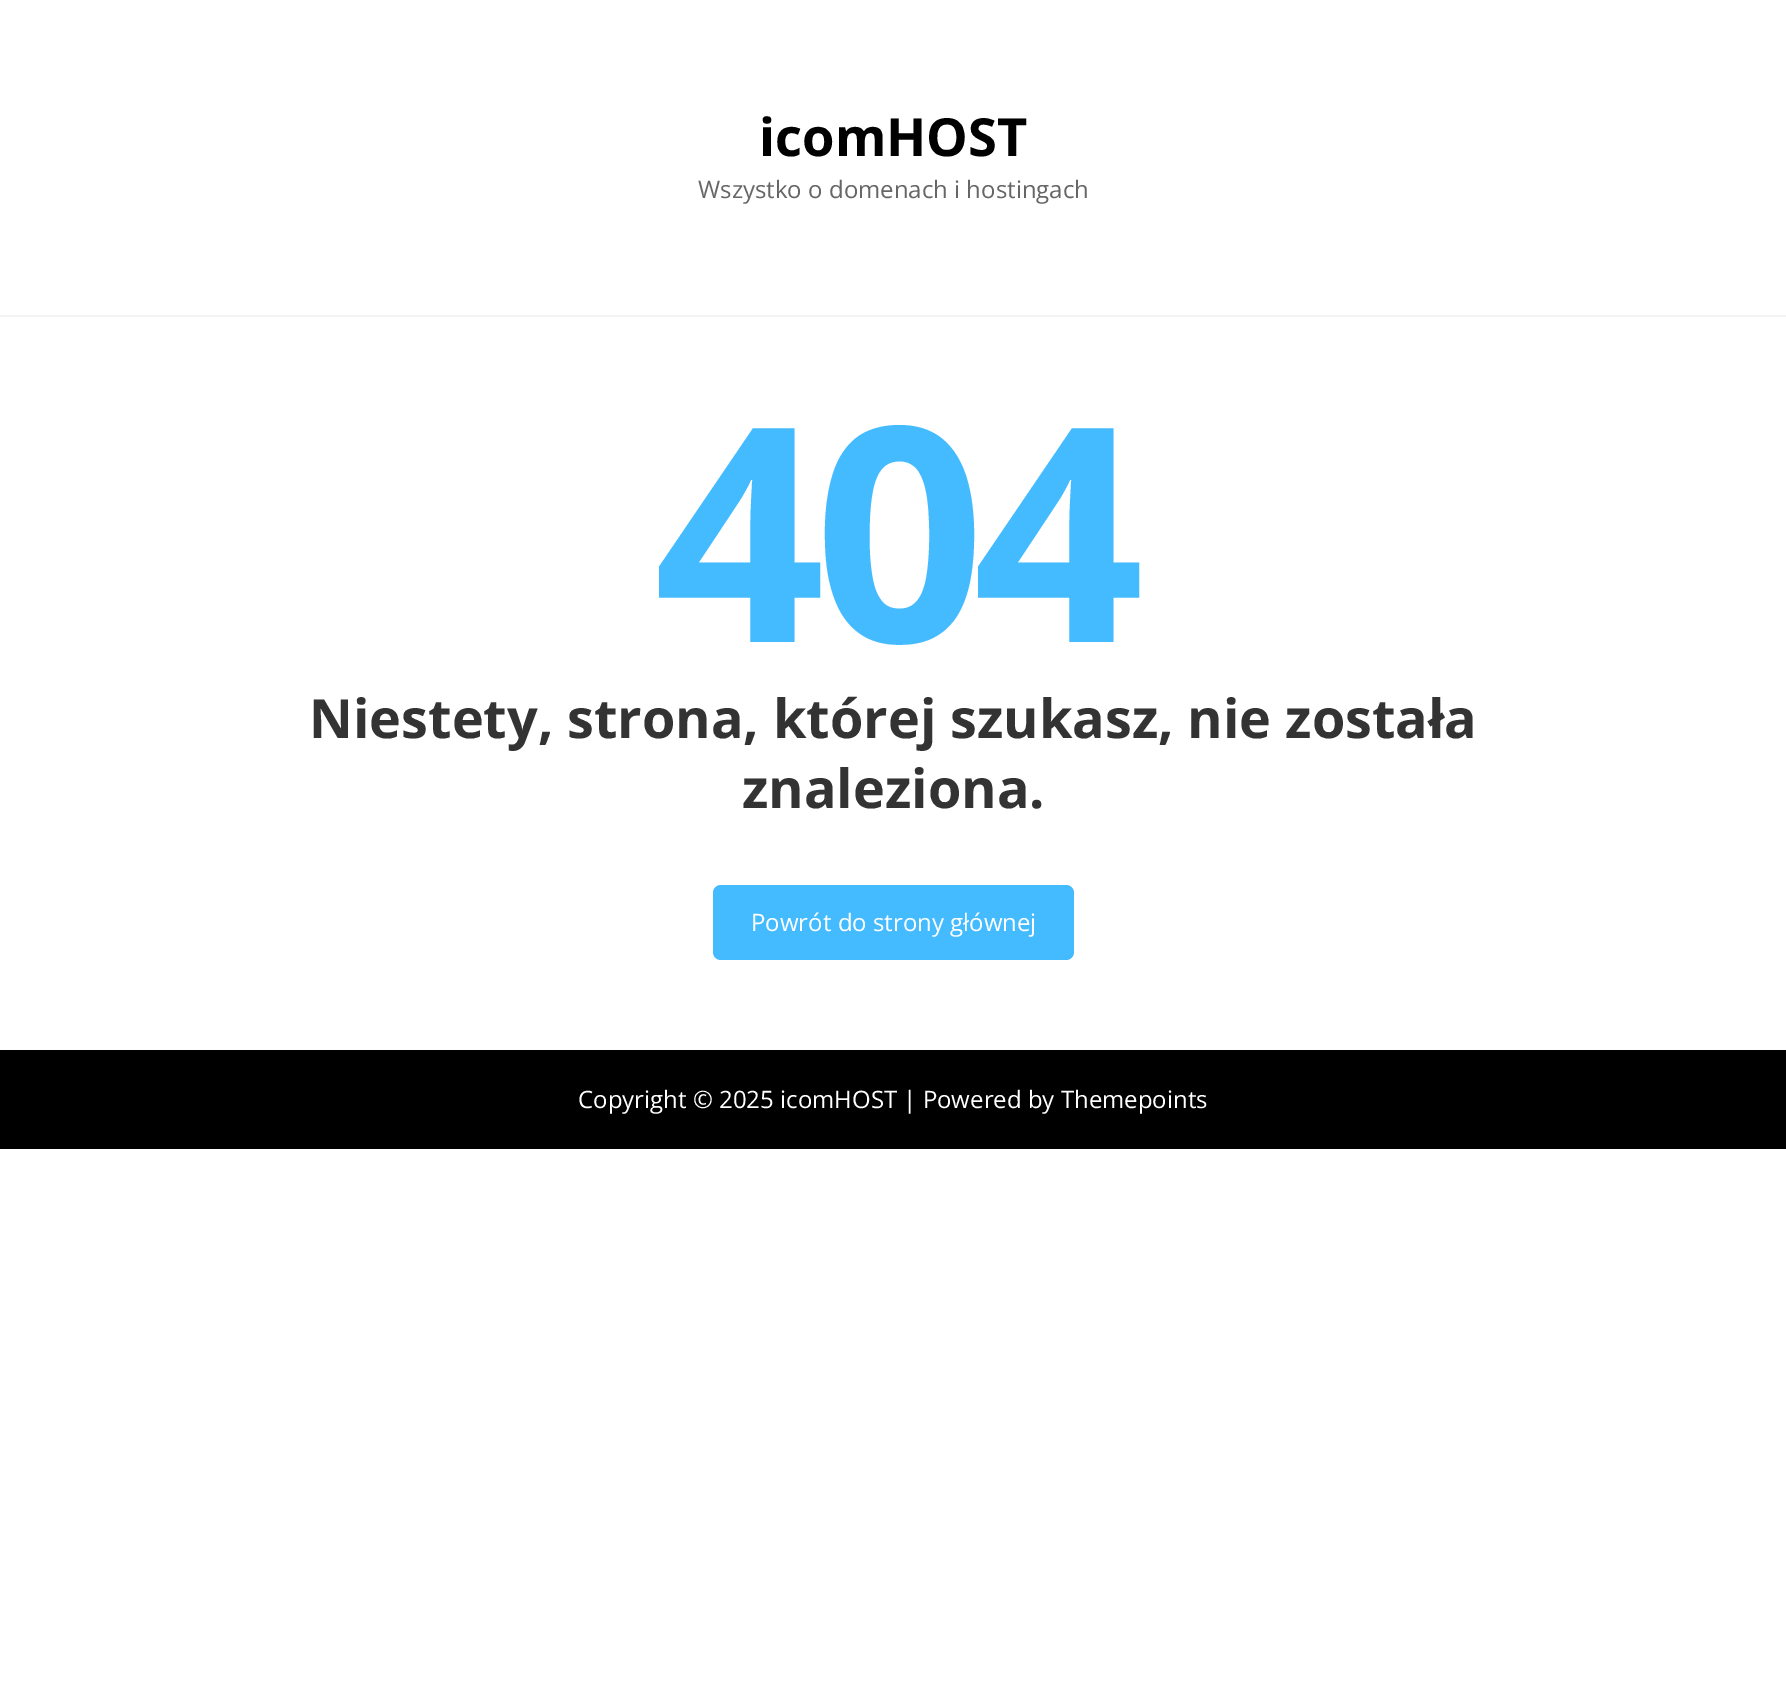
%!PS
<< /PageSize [1786 1687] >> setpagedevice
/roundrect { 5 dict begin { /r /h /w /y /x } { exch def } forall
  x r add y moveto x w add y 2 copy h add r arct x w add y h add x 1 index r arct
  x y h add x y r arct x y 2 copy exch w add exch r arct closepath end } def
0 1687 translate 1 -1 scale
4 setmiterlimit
1 setgray
0 0 1786 1687 rectfill
0.953 setgray
0 315 1786 2 rectfill
/OpenSans-Bold [52.5 0 0 -52.5 0 0] selectfont
0 setgray
759 156 moveto (icomHOST) show
/OpenSans-Regular [24 0 0 -24 0 0] selectfont
0.4 setgray
698 198 moveto (Wszystko o domenach i hostingach) show
/OpenSans-Bold [300 0 0 -300 0 0] selectfont
0.267 0.733 1 setrgbcolor
654 642 moveto -12 0 (404) ashow
/OpenSans-Bold [54 0 0 -54 0 0] selectfont
0.2 setgray
309 738 moveto (Niestety, strona, której szukasz, nie została) show
742 808 moveto (znaleziona.) show
0.267 0.733 1 setrgbcolor
713 885 361 75 8 roundrect fill
/OpenSans-Regular [24 0 0 -24 0 0] selectfont
1 setgray
751 931 moveto (Powrót do strony głównej) show
0 setgray
0 1050 1786 99 rectfill
1 setgray
578 1108 moveto (Copyright © 2025 icomHOST | Powered by Themepoints) show
showpage
